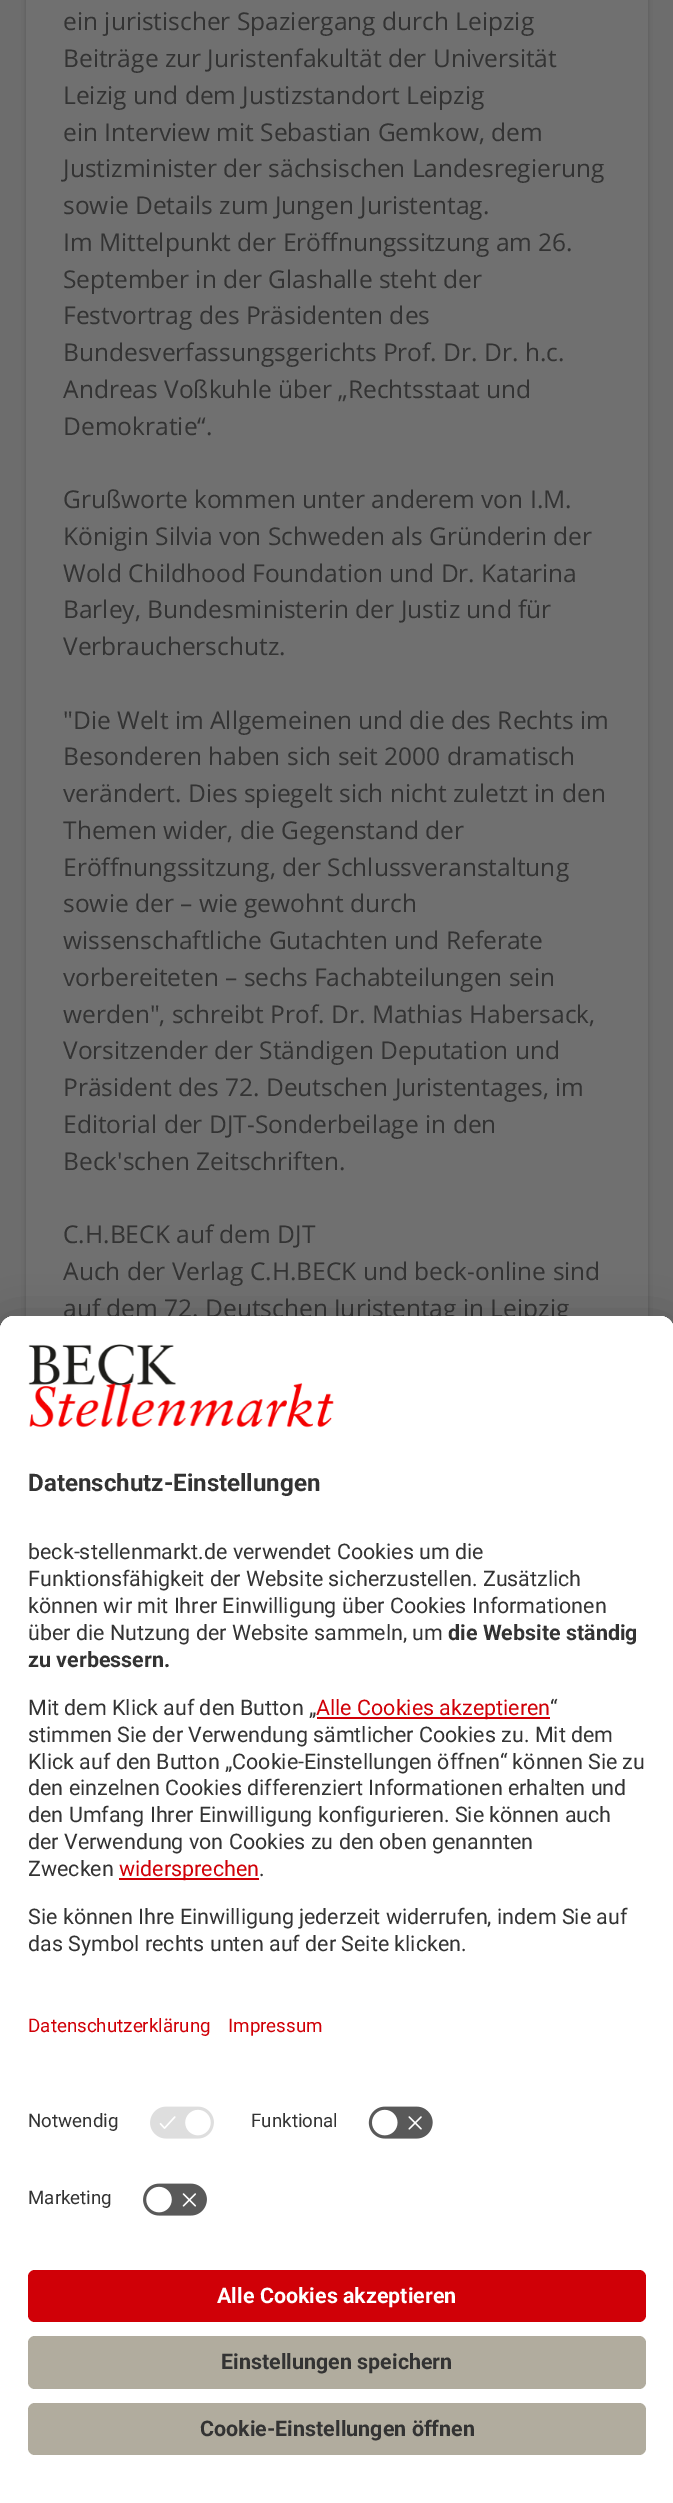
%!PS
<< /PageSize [673 2503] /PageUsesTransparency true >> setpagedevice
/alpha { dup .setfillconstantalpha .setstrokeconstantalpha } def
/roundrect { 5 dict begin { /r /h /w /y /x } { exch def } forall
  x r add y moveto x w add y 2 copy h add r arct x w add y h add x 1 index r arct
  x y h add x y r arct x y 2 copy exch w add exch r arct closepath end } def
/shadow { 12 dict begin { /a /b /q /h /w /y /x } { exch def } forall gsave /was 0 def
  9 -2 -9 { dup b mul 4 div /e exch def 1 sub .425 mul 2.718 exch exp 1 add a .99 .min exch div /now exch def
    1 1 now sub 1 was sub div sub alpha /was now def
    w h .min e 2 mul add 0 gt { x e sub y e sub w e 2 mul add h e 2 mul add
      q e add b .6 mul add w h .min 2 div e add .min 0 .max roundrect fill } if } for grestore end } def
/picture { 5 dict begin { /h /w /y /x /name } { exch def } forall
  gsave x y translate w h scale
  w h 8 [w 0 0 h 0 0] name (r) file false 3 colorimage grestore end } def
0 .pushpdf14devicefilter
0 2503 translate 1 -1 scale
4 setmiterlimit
0.427 setgray
0 0 673 2503 rectfill
0.141 setgray
26 -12 622 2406 4 2.5 0.25 shadow
0.439 setgray
26 0 622 1316 rectfill
/OpenSans-Regular [24.5 0 0 -24.5 0 0] selectfont
0.2 setgray
63 30 moveto (ein juristischer Spaziergang durch Leipzig) show
63 67 moveto (Beiträge zur Juristenfakultät der Universität) show
63 104 moveto (Leizig und dem Justizstandort Leipzig) show
63 141 moveto (ein Interview mit Sebastian Gemkow, dem) show
63 177 moveto (Justizminister der sächsischen Landesregierung) show
63 214 moveto (sowie Details zum Jungen Juristentag.) show
63 251 moveto (Im Mittelpunkt der Eröffnungssitzung am 26.) show
63 288 moveto (September in der Glashalle steht der) show
63 324 moveto (Festvortrag des Präsidenten des) show
63 361 moveto (Bundesverfassungsgerichts Prof. Dr. Dr. h.c.) show
63 398 moveto (Andreas Voßkuhle über „Rechtsstaat und) show
63 435 moveto (Demokratie“.) show
63 508 moveto (Grußworte kommen unter anderem von I.M.) show
63 545 moveto (Königin Silvia von Schweden als Gründerin der) show
63 582 moveto (Wold Childhood Foundation und Dr. Katarina) show
63 618 moveto (Barley, Bundesministerin der Justiz und für) show
63 655 moveto (Verbraucherschutz.) show
63 729 moveto ("Die Welt im Allgemeinen und die des Rechts im) show
63 765 moveto (Besonderen haben sich seit 2000 dramatisch) show
63 802 moveto (verändert. Dies spiegelt sich nicht zuletzt in den) show
63 839 moveto (Themen wider, die Gegenstand der) show
63 876 moveto (Eröffnungssitzung, der Schlussveranstaltung) show
63 912 moveto (sowie der – wie gewohnt durch) show
63 949 moveto (wissenschaftliche Gutachten und Referate) show
63 986 moveto (vorbereiteten – sechs Fachabteilungen sein) show
63 1023 moveto (werden", schreibt Prof. Dr. Mathias Habersack,) show
63 1059 moveto (Vorsitzender der Ständigen Deputation und) show
63 1096 moveto (Präsident des 72. Deutschen Juristentages, im) show
63 1133 moveto (Editorial der DJT-Sonderbeilage in den) show
63 1170 moveto (Beck'schen Zeitschriften.) show
63 1243 moveto (C.H.BECK auf dem DJT) show
63 1280 moveto (Auch der Verlag C.H.BECK und beck-online sind) show
63 1317 moveto (auf dem 72. Deutschen Juristentag in Leipzig) show
0 setgray
0 1351 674 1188 14 24.5 0.3 shadow
0 1325 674 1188 14 23 0.22 shadow
1 setgray
newpath 14 1316 moveto 660 1316 lineto 667.5 1316 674 1322.5 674 1330 curveto 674 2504 lineto 0 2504 lineto 0 1330 lineto 0 1322.5 6.5 1316 14 1316 curveto closepath fill
newpath 14 1316 moveto 660 1316 lineto 667.5 1316 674 1322.5 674 1330 curveto 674 2249 lineto 0 2249 lineto 0 1330 lineto 0 1322.5 6.5 1316 14 1316 curveto closepath fill
newpath 14 1316 moveto 660 1316 lineto 667.5 1316 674 1322.5 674 1330 curveto 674 2095 lineto 0 2095 lineto 0 1330 lineto 0 1322.5 6.5 1316 14 1316 curveto closepath fill
(img1.rgb) 28 1344 306 84 picture
/Roboto-Bold [24.1 0 0 -24.1 0 0] selectfont
0.2 setgray
28 1491 moveto (Datenschutz-Einstellungen) show
/Roboto-Regular [21.45 0 0 -21.45 0 0] selectfont
28 1559 moveto (beck-stellenmarkt.de verwendet Cookies um die) show
28 1586 moveto (Funktionsfähigkeit der Website sicherzustellen. Zusätzlich) show
28 1613 moveto (können wir mit Ihrer Einwilligung über Cookies Informationen) show
28 1640 moveto (über die Nutzung der Website sammeln, um) show
/Roboto-Bold [21.45 0 0 -21.45 0 0] selectfont
448 1640 moveto (die Website ständig) show
28 1667 moveto (zu verbessern.) show
/Roboto-Regular [21.45 0 0 -21.45 0 0] selectfont
28 1715 moveto (Mit dem Klick auf den Button „) show
0.816 0 0.027 setrgbcolor
317 1717 233 2 rectfill
316 1715 moveto (Alle Cookies akzeptieren) show
0.2 setgray
550 1715 moveto (“) show
28 1742 moveto (stimmen Sie der Verwendung sämtlicher Cookies zu. Mit dem) show
28 1769 moveto (Klick auf den Button „Cookie-Einstellungen öffnen“ können Sie zu) show
28 1795 moveto (den einzelnen Cookies differenziert Informationen erhalten und) show
28 1822 moveto (den Umfang Ihrer Einwilligung konfigurieren. Sie können auch) show
28 1849 moveto (der Verwendung von Cookies zu den oben genannten) show
28 1876 moveto (Zwecken) show
0.816 0 0.027 setrgbcolor
119 1878 140 2 rectfill
119 1876 moveto (widersprechen) show
0.2 setgray
259 1876 moveto (.) show
28 1924 moveto (Sie können Ihre Einwilligung jederzeit widerrufen, indem Sie auf) show
28 1951 moveto (das Symbol rechts unten auf der Seite klicken.) show
/Roboto-Regular [18.75 0 0 -18.75 0 0] selectfont
0.816 0 0.027 setrgbcolor
28 2032 moveto (Datenschutzerklärung) show
228 2032 moveto (Impressum) show
0.2 setgray
28 2127 moveto (Notwendig) show
(img2.rgb) 150 2106 64 33 picture
251 2127 moveto (Funktional) show
(img3.rgb) 368 2106 65 33 picture
28 2204 moveto (Marketing) show
(img4.rgb) 143 2183 64 33 picture
0.816 0 0.027 setrgbcolor
28 2270 618 52 7 roundrect fill
/Roboto-Bold [21.45 0 0 -21.45 0 0] selectfont
1 setgray
217 2303 moveto (Alle Cookies akzeptieren) show
0.694 0.675 0.62 setrgbcolor
28 2336 618 53 7 roundrect fill
0.2 setgray
221 2369 moveto (Einstellungen speichern) show
0.694 0.675 0.62 setrgbcolor
28 2403 618 52 7 roundrect fill
0.2 setgray
200 2436 moveto (Cookie-Einstellungen öffnen) show
.poppdf14devicefilter showpage
